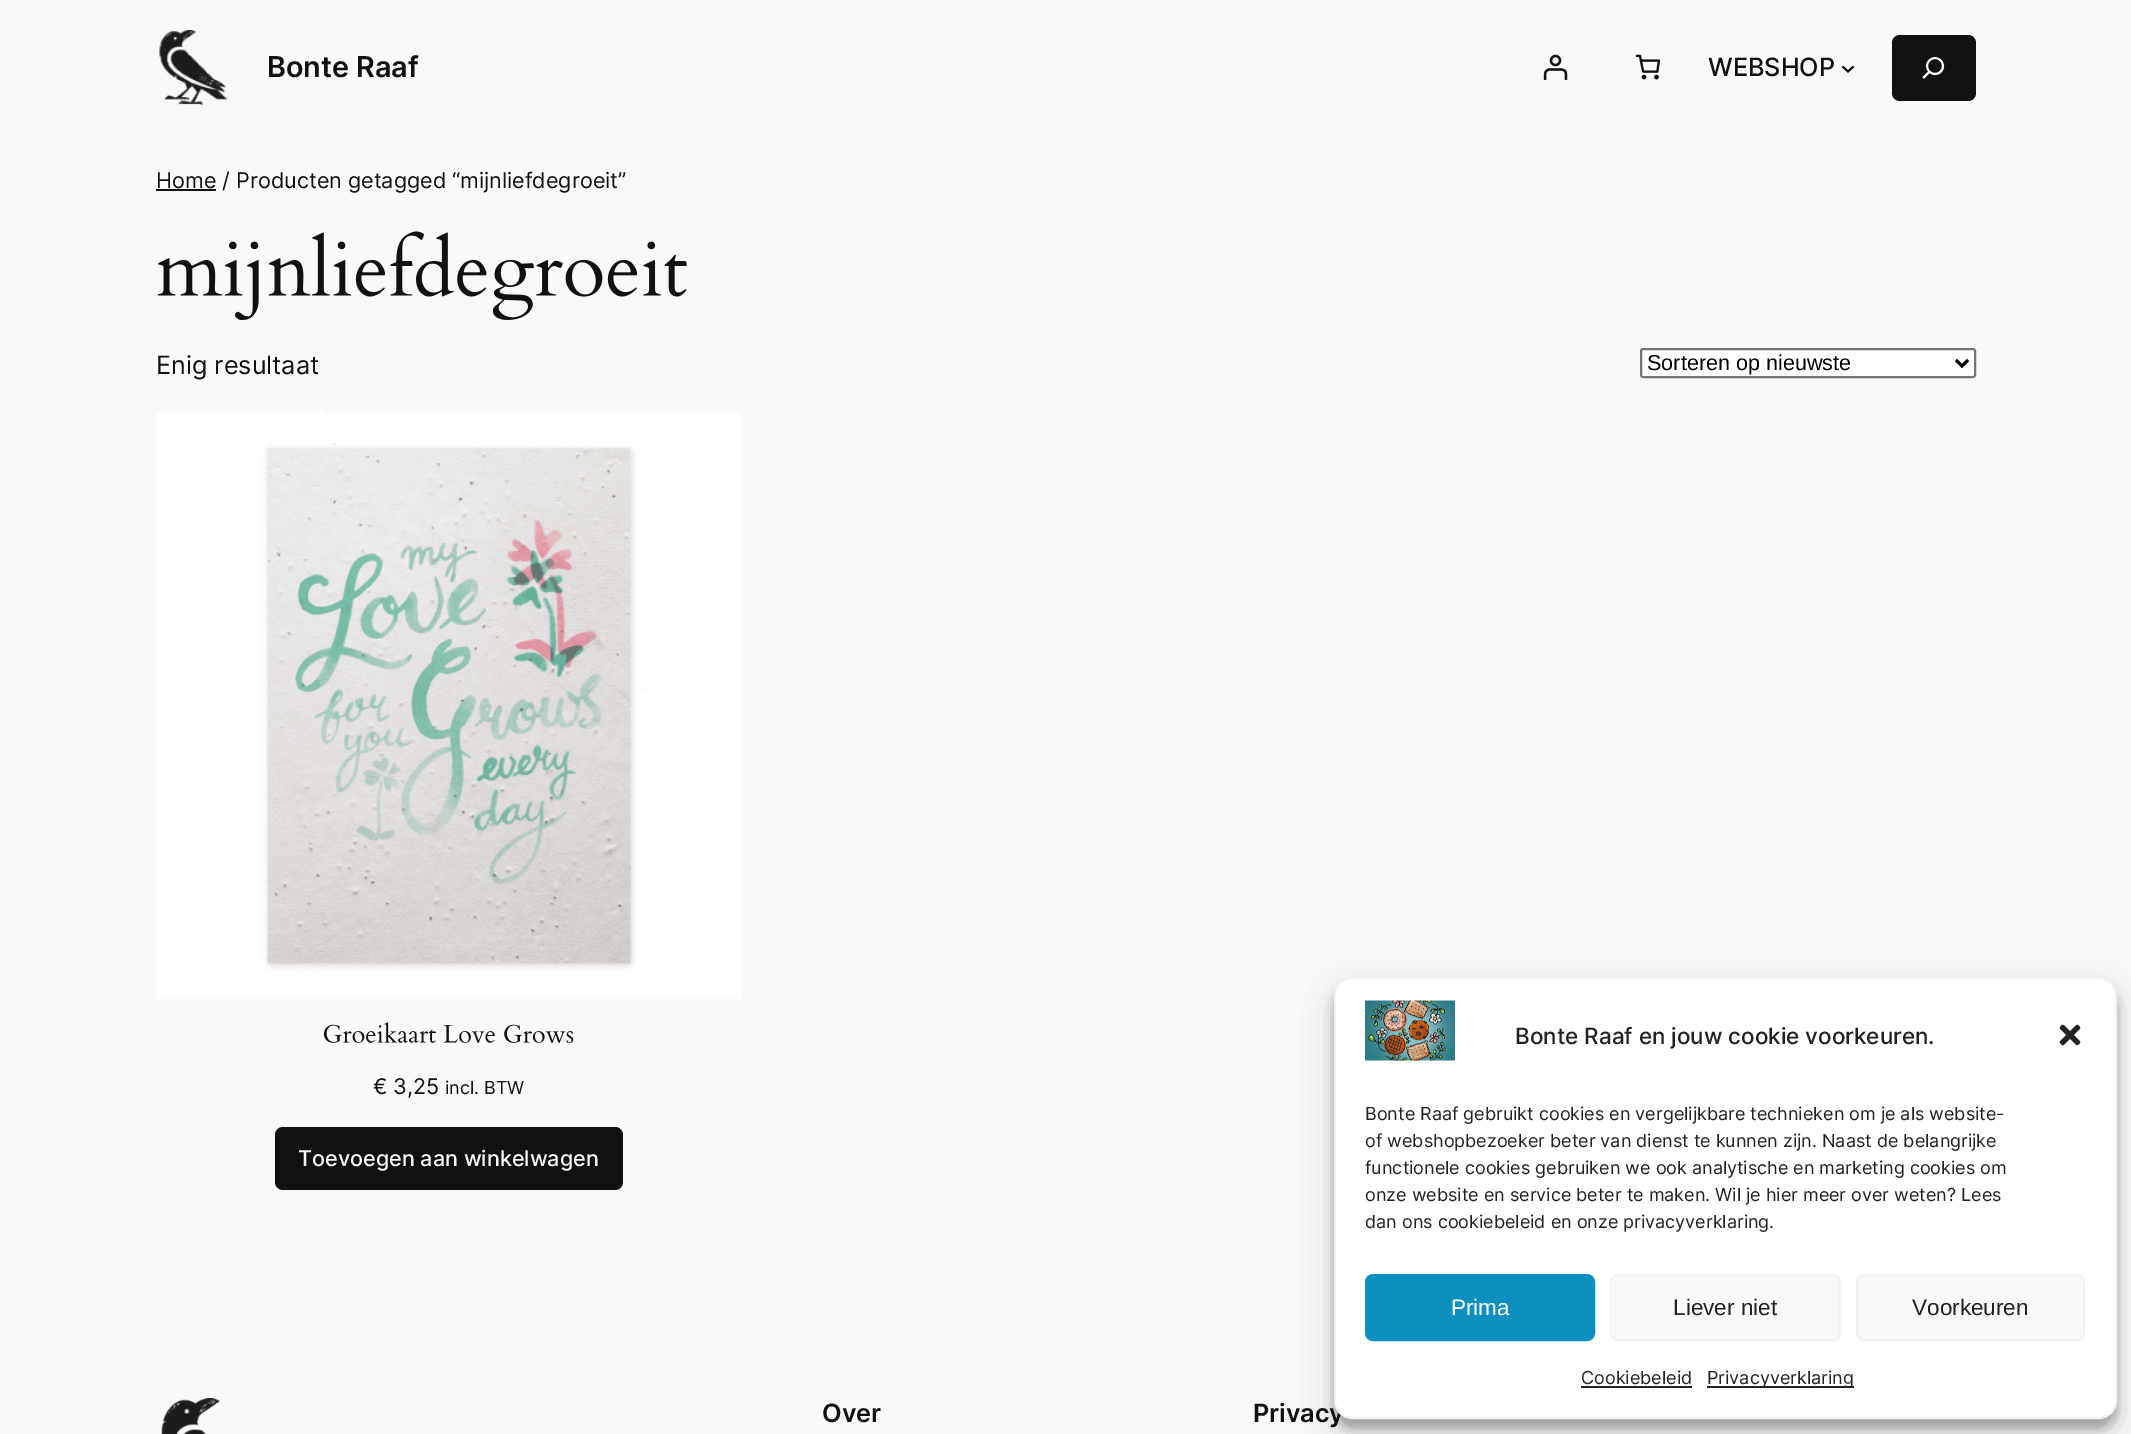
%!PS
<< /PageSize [2131 1434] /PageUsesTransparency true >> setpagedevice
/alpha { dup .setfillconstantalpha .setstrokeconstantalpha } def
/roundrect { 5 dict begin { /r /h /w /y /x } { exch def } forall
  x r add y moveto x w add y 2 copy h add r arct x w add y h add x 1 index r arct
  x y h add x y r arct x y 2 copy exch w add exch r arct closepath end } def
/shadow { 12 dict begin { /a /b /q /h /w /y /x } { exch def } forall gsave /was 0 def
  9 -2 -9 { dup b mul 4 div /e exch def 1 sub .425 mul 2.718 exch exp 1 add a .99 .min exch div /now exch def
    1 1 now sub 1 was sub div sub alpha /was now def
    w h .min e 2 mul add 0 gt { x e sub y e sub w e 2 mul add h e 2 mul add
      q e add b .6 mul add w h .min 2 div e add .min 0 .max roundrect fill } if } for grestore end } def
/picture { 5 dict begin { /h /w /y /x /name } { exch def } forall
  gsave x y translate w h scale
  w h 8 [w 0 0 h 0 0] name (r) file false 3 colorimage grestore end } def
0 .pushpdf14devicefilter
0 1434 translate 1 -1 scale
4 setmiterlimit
0.976 setgray
0 0 2131 1434 rectfill
(img1.rgb) 159 30 69 75 picture
/Inter-SemiBold [28.75 0 0 -28.75 0 0] selectfont
0.067 setgray
267 77 moveto (Bonte Raaf) show
(img2.rgb) 1543 54 25 26 picture
(img3.rgb) 1635 54 26 26 picture
/Inter-Medium [25.25 0 0 -25.25 0 0] selectfont
1708 76 moveto (WEBSHOP) show
1.9 setlinewidth
newpath 1842.5 66.5 moveto 1848 71.5 lineto 1853.5 66.5 lineto stroke
1892 35 84 66 8 roundrect fill
(img4.rgb) 1922 57 23 22 picture
156 189 60 2 rectfill
/Inter-Regular [21.6 0 0 -21.6 0 0] selectfont
156 188 moveto (Home / Producten getagged “mijnliefdegroeit”) show
(img5.rgb) 157 231 530 89 picture
/Inter-Regular [25.25 0 0 -25.25 0 0] selectfont
156 374 moveto (Enig resultaat) show
1 setgray
1641 349 334 28 2 roundrect gsave fill grestore
0.463 setgray
2 setlinewidth
stroke
0 setgray
3 setlinewidth
newpath 1956 360 moveto 1962 366 lineto 1968 360 lineto stroke
/LiberationSans-Regular [21.6 0 0 -21.6 0 0] selectfont
1647 370 moveto (Sorteren op nieuwste) show
(img6.rgb) 156 412 585 587 picture
(img7.rgb) 323 1022 251 21 picture
/Inter-Regular [21.6 0 0 -21.6 0 0] selectfont
0.067 setgray
373 1094 moveto (€ 3,25) show
/Inter-Regular [18 0 0 -18 0 0] selectfont
445 1094 moveto (incl. BTW) show
275 1127 348 63 8 roundrect fill
/Inter-Medium [21.6 0 0 -21.6 0 0] selectfont
0.976 setgray
298 1166 moveto (Toevoegen aan winkelwagen) show
(img8.rgb) 161 1398 59 36 picture
/Inter-SemiBold [25.25 0 0 -25.25 0 0] selectfont
0.067 setgray
822 1422 moveto (Over) show
1253 1422 moveto (Privacy) show
0 setgray
1334 986 783 442 18 4.5 0.23 shadow
1334 992 783 442 18 15 0.19 shadow
1 setgray
1335 978 781 440 17 roundrect gsave fill grestore
0.949 setgray
2 setlinewidth
stroke
(img9.rgb) 1365 1000 90 61 picture
/Inter-Medium [22.5 0 0 -22.5 0 0] selectfont
0.133 setgray
1515 1044 moveto (Bonte Raaf en jouw cookie voorkeuren.) show
(img10.rgb) 2059 1024 22 22 picture
/Inter-Regular [18 0 0 -18 0 0] selectfont
1365 1120 moveto (Bonte Raaf gebruikt cookies en vergelijkbare technieken om je als website-) show
1365 1147 moveto (of webshopbezoeker beter van dienst te kunnen zijn. Naast de belangrijke) show
1365 1174 moveto (functionele cookies gebruiken we ook analytische en marketing cookies om) show
1365 1201 moveto (onze website en service beter te maken. Wil je hier meer over weten? Lees) show
1365 1228 moveto (dan ons cookiebeleid en onze privacyverklaring.) show
0.051 0.561 0.749 setrgbcolor
1366 1275 228 65 7 roundrect gsave fill grestore
stroke
/LiberationSans-Regular [22.5 0 0 -22.5 0 0] selectfont
1 setgray
1451 1315 moveto (Prima) show
0.976 setgray
1611 1275 229 65 7 roundrect gsave fill grestore
0.949 setgray
stroke
0.133 setgray
1673 1315 moveto (Liever niet) show
0.976 setgray
1857 1275 227 65 7 roundrect gsave fill grestore
0.949 setgray
stroke
0.133 setgray
1912 1315 moveto (Voorkeuren) show
/Inter-Regular [18 0 0 -18 0 0] selectfont
1581 1384 moveto (Cookiebeleid) show
1581 1386 111 2 rectfill
1707 1386 147 2 rectfill
1707 1384 moveto (Privacyverklaring) show
.poppdf14devicefilter showpage
